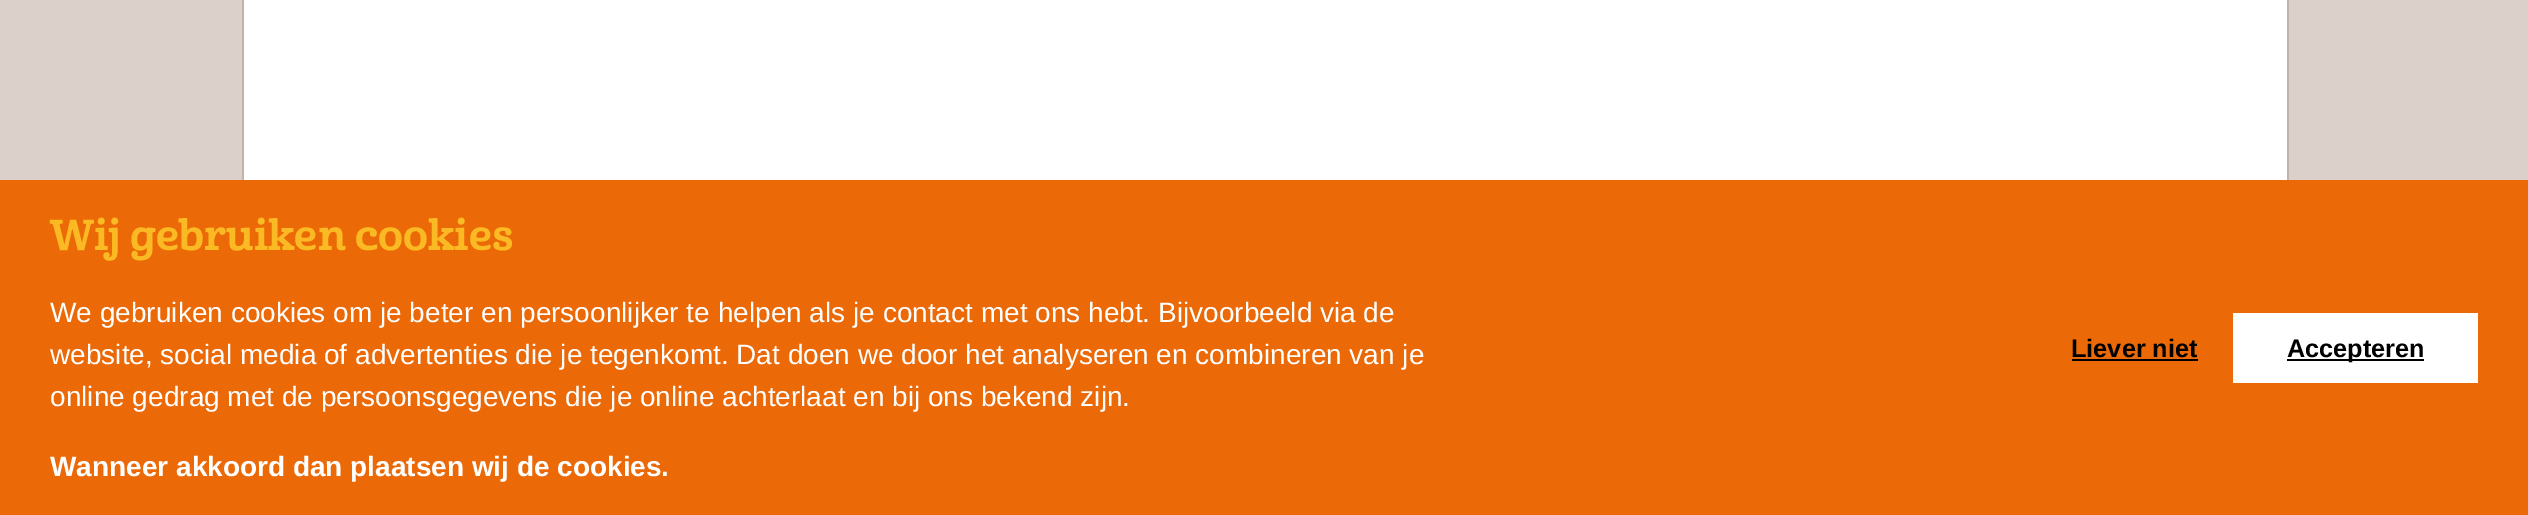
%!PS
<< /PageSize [2528 515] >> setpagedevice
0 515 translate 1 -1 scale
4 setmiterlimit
0.859 0.82 0.792 setrgbcolor
0 0 2528 515 rectfill
1 setgray
244 0 2043 180 rectfill
0.761 0.698 0.655 setrgbcolor
2287 0 2 180 rectfill
242 0 2 180 rectfill
0.922 0.412 0.024 setrgbcolor
0 180 2528 335 rectfill
/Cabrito-ExtraBold [42 0 0 -42 0 0] selectfont
0.984 0.729 0.137 setrgbcolor
50 250 moveto (Wij gebruiken cookies) show
/LiberationSans-Regular [28 0 0 -28 0 0] selectfont
1 setgray
50 322 moveto (We gebruiken cookies om je beter en persoonlijker te helpen als je contact met ons hebt. Bijvoorbeeld via de) show
50 364 moveto (website, social media of advertenties die je tegenkomt. Dat doen we door het analyseren en combineren van je) show
50 406 moveto (online gedrag met de persoonsgegevens die je online achterlaat en bij ons bekend zijn.) show
/LiberationSans-Bold [28 0 0 -28 0 0] selectfont
50 476 moveto (Wanneer akkoord dan plaatsen wij de cookies.) show
/LiberationSans-Bold [25.25 0 0 -25.25 0 0] selectfont
0 setgray
2071 357 moveto (Liever niet) show
2072 359 126 2 rectfill
1 setgray
2233 313 245 70 rectfill
0 setgray
2287 359 137 2 rectfill
2287 357 moveto (Accepteren) show
showpage
